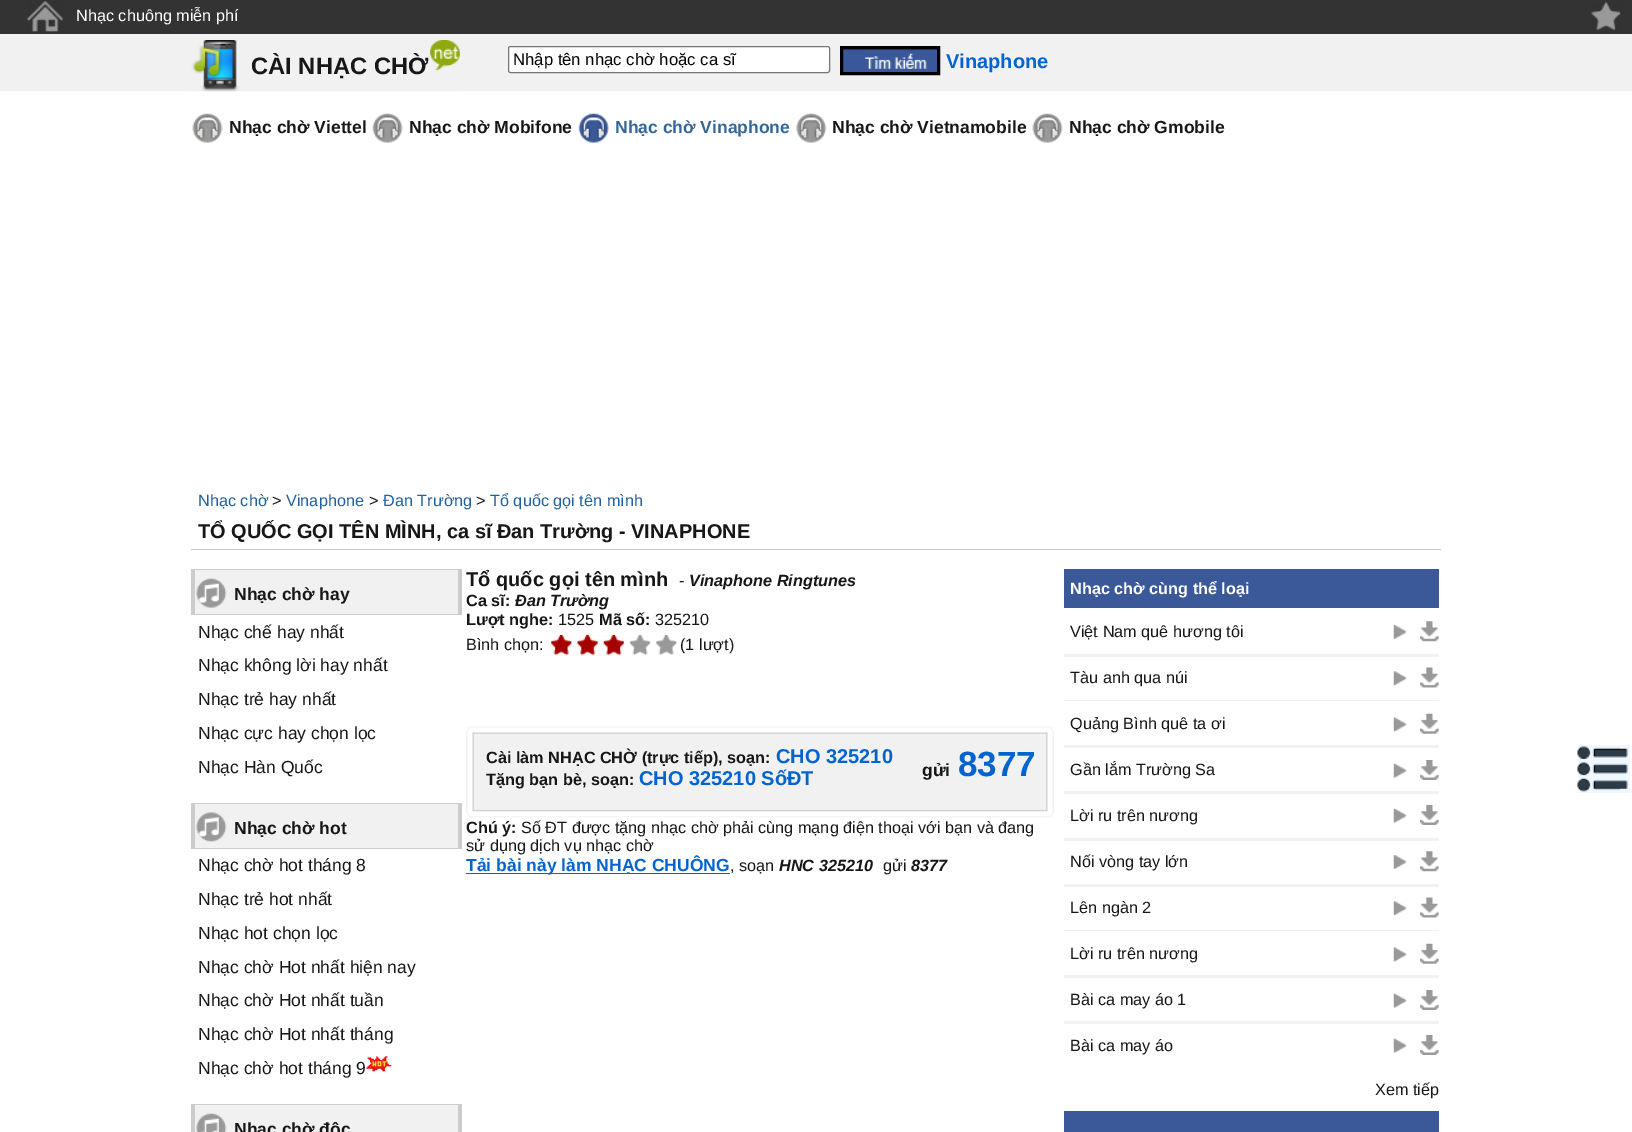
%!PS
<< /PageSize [1632 1132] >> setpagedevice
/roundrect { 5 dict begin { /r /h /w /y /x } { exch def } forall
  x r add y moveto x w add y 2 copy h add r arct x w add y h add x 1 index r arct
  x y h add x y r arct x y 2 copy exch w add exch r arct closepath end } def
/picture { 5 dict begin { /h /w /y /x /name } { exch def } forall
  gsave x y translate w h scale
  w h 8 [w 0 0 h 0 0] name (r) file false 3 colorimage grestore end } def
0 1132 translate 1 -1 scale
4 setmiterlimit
1 setgray
0 0 1632 1132 rectfill
0.2 setgray
0 0 1632 34 rectfill
(img1.rgb) 27 1 36 31 picture
/LiberationSans-Regular [16.25 0 0 -16.25 0 0] selectfont
1 setgray
76 21 moveto (Nhạc chuông miễn phí) show
(img2.rgb) 1591 2 30 29 picture
0.945 setgray
0 34 1632 57 rectfill
(img3.rgb) 191 40 269 52 picture
/LiberationSans-Bold [23.75 0 0 -23.75 0 0] selectfont
0.09 0.09 0.098 setrgbcolor
251 74 moveto (CÀI NHẠC CHỜ) show
1 setgray
508.5 46.5 321 26 2 roundrect gsave fill grestore
0.463 setgray
stroke
/LiberationSans-Regular [16.7 0 0 -16.7 0 0] selectfont
0 setgray
513 65 moveto (Nhập tên nhạc chờ hoặc ca sĩ) show
(img4.rgb) 843 49 94 23 picture
3 setlinewidth
841.5 47.5 97 26 rectstroke
/LiberationSans-Bold [20 0 0 -20 0 0] selectfont
0.008 0.392 0.812 setrgbcolor
946 68 moveto (Vinaphone) show
(img5.rgb) 192 113 31 30 picture
/LiberationSans-Bold [17.5 0 0 -17.5 0 0] selectfont
0.09 0.09 0.098 setrgbcolor
229 133 moveto (Nhạc chờ Viettel) show
(img6.rgb) 372 113 31 30 picture
409 133 moveto (Nhạc chờ Mobifone) show
(img7.rgb) 578 113 32 30 picture
0.2 0.404 0.6 setrgbcolor
615 133 moveto (Nhạc chờ Vinaphone) show
(img8.rgb) 796 113 31 30 picture
0.09 0.09 0.098 setrgbcolor
832 133 moveto (Nhạc chờ Vietnamobile) show
(img9.rgb) 1032 113 31 30 picture
1069 133 moveto (Nhạc chờ Gmobile) show
/LiberationSans-Regular [16.25 0 0 -16.25 0 0] selectfont
0.125 0.38 0.62 setrgbcolor
198 506 moveto (Nhạc chờ) show
0.09 0.09 0.098 setrgbcolor
272 506 moveto (>) show
0.125 0.38 0.62 setrgbcolor
286 506 moveto (Vinaphone) show
0.09 0.09 0.098 setrgbcolor
369 506 moveto (>) show
0.125 0.38 0.62 setrgbcolor
383 506 moveto (Đan Trường) show
0.09 0.09 0.098 setrgbcolor
476 506 moveto (>) show
0.125 0.38 0.62 setrgbcolor
490 506 moveto (Tổ quốc gọi tên mình) show
/LiberationSans-Bold [20 0 0 -20 0 0] selectfont
0.09 0.09 0.098 setrgbcolor
198 538 moveto (TỔ QUỐC GỌI TÊN MÌNH, ca sĩ Đan Trường - VINAPHONE) show
0.8 setgray
191 549 1250 1 rectfill
0.945 setgray
195 570 263 44 rectfill
0.8 setgray
191 569 270 1 rectfill
458 569 4 46 rectfill
191 614 270 1 rectfill
191 569 4 46 rectfill
(img10.rgb) 196 578 31 30 picture
/LiberationSans-Bold [17.5 0 0 -17.5 0 0] selectfont
0.09 0.09 0.098 setrgbcolor
234 600 moveto (Nhạc chờ hay) show
/LiberationSans-Regular [17.5 0 0 -17.5 0 0] selectfont
198 638 moveto (Nhạc chế hay nhất) show
198 671 moveto (Nhạc không lời hay nhất) show
198 705 moveto (Nhạc trẻ hay nhất) show
198 739 moveto (Nhạc cực hay chọn lọc) show
198 773 moveto (Nhạc Hàn Quốc) show
0.945 setgray
195 804 263 44 rectfill
0.8 setgray
191 803 270 1 rectfill
458 803 4 46 rectfill
191 848 270 1 rectfill
191 803 4 46 rectfill
(img11.rgb) 196 812 31 30 picture
/LiberationSans-Bold [17.5 0 0 -17.5 0 0] selectfont
0.09 0.09 0.098 setrgbcolor
234 834 moveto (Nhạc chờ hot) show
/LiberationSans-Regular [17.5 0 0 -17.5 0 0] selectfont
198 871 moveto (Nhạc chờ hot tháng 8) show
198 905 moveto (Nhạc trẻ hot nhất) show
198 939 moveto (Nhạc hot chọn lọc) show
198 973 moveto (Nhạc chờ Hot nhất hiện nay) show
198 1006 moveto (Nhạc chờ Hot nhất tuần) show
198 1040 moveto (Nhạc chờ Hot nhất tháng) show
198 1074 moveto (Nhạc chờ hot tháng 9) show
(img12.rgb) 366 1056 26 16 picture
0.945 setgray
195 1105 263 27 rectfill
0.8 setgray
191 1104 270 1 rectfill
458 1104 4 28 rectfill
191 1104 4 28 rectfill
(img13.rgb) 196 1113 31 19 picture
/LiberationSans-Bold [17.5 0 0 -17.5 0 0] selectfont
0.09 0.09 0.098 setrgbcolor
234 1135 moveto (Nhạc chờ độc) show
/LiberationSans-Bold [20 0 0 -20 0 0] selectfont
466 586 moveto (Tổ quốc gọi tên mình) show
/LiberationSans-Regular [16.25 0 0 -16.25 0 0] selectfont
679 586 moveto (-) show
/LiberationSans-BoldItalic [16.25 0 0 -16.25 0 0] selectfont
689 586 moveto (Vinaphone Ringtunes) show
/LiberationSans-Bold [16.25 0 0 -16.25 0 0] selectfont
466 606 moveto (Ca sĩ:) show
/LiberationSans-BoldItalic [16.25 0 0 -16.25 0 0] selectfont
515 606 moveto (Đan Trường) show
/LiberationSans-Bold [16.25 0 0 -16.25 0 0] selectfont
466 625 moveto (Lượt nghe:) show
/LiberationSans-Regular [16.25 0 0 -16.25 0 0] selectfont
558 625 moveto (1525) show
/LiberationSans-Bold [16.25 0 0 -16.25 0 0] selectfont
599 625 moveto (Mã số:) show
/LiberationSans-Regular [16.25 0 0 -16.25 0 0] selectfont
655 625 moveto (325210) show
466 650 moveto (Bình chọn:) show
(img14.rgb) 550 635 127 22 picture
680 650 moveto (\(1 lượt\)) show
(img15.rgb) 466 726 588 92 picture
(img16.rgb) 466 726 8 92 picture
/LiberationSans-Bold [16.25 0 0 -16.25 0 0] selectfont
486 763 moveto (Cài làm NHẠC CHỜ \(trực tiếp\), soạn:) show
/LiberationSans-Bold [20 0 0 -20 0 0] selectfont
0.008 0.392 0.812 setrgbcolor
776 763 moveto (CHO 325210) show
/LiberationSans-Bold [16.25 0 0 -16.25 0 0] selectfont
0.09 0.09 0.098 setrgbcolor
486 785 moveto (Tặng bạn bè, soạn:) show
/LiberationSans-Bold [20 0 0 -20 0 0] selectfont
0.008 0.392 0.812 setrgbcolor
639 785 moveto (CHO 325210 SốĐT) show
/LiberationSans-Bold [17.5 0 0 -17.5 0 0] selectfont
0.09 0.09 0.098 setrgbcolor
922 776 moveto (gửi) show
/LiberationSans-Bold [35 0 0 -35 0 0] selectfont
0.008 0.392 0.812 setrgbcolor
958 776 moveto (8377) show
(img17.rgb) 1046 726 8 92 picture
/LiberationSans-Bold [16.25 0 0 -16.25 0 0] selectfont
0.09 0.09 0.098 setrgbcolor
466 833 moveto (Chú ý:) show
/LiberationSans-Regular [16.25 0 0 -16.25 0 0] selectfont
521 833 moveto (Số ĐT được tặng nhạc chờ phải cùng mạng điện thoại với bạn và đang) show
466 851 moveto (sử dụng dịch vụ nhạc chờ) show
0.008 0.392 0.812 setrgbcolor
466 873 264 1 rectfill
/LiberationSans-Bold [17.5 0 0 -17.5 0 0] selectfont
466 871 moveto (Tải bài này làm NHẠC CHUÔNG) show
/LiberationSans-Regular [16.25 0 0 -16.25 0 0] selectfont
0.09 0.09 0.098 setrgbcolor
730 871 moveto (, soạn) show
/LiberationSans-BoldItalic [16.25 0 0 -16.25 0 0] selectfont
779 871 moveto (HNC 325210) show
/LiberationSans-Regular [16.25 0 0 -16.25 0 0] selectfont
883 871 moveto (gửi) show
/LiberationSans-BoldItalic [16.25 0 0 -16.25 0 0] selectfont
911 871 moveto (8377) show
0.231 0.349 0.6 setrgbcolor
1064 569 375 39 rectfill
/LiberationSans-Bold [16.25 0 0 -16.25 0 0] selectfont
1 setgray
1070 594 moveto (Nhạc chờ cùng thể loại) show
/LiberationSans-Regular [16.25 0 0 -16.25 0 0] selectfont
0.09 0.09 0.098 setrgbcolor
1070 637 moveto (Việt Nam quê hương tôi) show
(img18.rgb) 1393 624 14 15 picture
(img19.rgb) 1420 621 19 21 picture
0.949 setgray
1064 654 375 3 rectfill
0.09 0.09 0.098 setrgbcolor
1070 683 moveto (Tàu anh qua núi) show
(img20.rgb) 1393 671 14 15 picture
(img21.rgb) 1420 667 19 21 picture
0.949 setgray
1064 700 375 1 rectfill
0.09 0.09 0.098 setrgbcolor
1070 729 moveto (Quảng Bình quê ta ơi) show
(img22.rgb) 1393 717 14 15 picture
(img23.rgb) 1420 713 19 21 picture
0.949 setgray
1064 745 375 3 rectfill
0.09 0.09 0.098 setrgbcolor
1070 775 moveto (Gần lắm Trường Sa) show
(img24.rgb) 1393 763 14 15 picture
(img25.rgb) 1420 760 19 20 picture
0.949 setgray
1064 791 375 3 rectfill
0.09 0.09 0.098 setrgbcolor
1070 821 moveto (Lời ru trên nương) show
(img24.rgb) 1393 808 14 15 picture
(img25.rgb) 1420 805 19 20 picture
0.949 setgray
1064 838 375 3 rectfill
0.09 0.09 0.098 setrgbcolor
1070 867 moveto (Nối vòng tay lớn) show
(img18.rgb) 1393 854 14 15 picture
(img19.rgb) 1420 851 19 21 picture
0.949 setgray
1064 884 375 3 rectfill
0.09 0.09 0.098 setrgbcolor
1070 913 moveto (Lên ngàn 2) show
(img20.rgb) 1393 901 14 15 picture
(img21.rgb) 1420 897 19 21 picture
0.949 setgray
1064 930 375 1 rectfill
0.09 0.09 0.098 setrgbcolor
1070 959 moveto (Lời ru trên nương) show
(img22.rgb) 1393 947 14 15 picture
(img23.rgb) 1420 943 19 21 picture
0.949 setgray
1064 975 375 3 rectfill
0.09 0.09 0.098 setrgbcolor
1070 1005 moveto (Bài ca may áo 1) show
(img24.rgb) 1393 993 14 15 picture
(img25.rgb) 1420 990 19 20 picture
0.949 setgray
1064 1021 375 3 rectfill
0.09 0.09 0.098 setrgbcolor
1070 1051 moveto (Bài ca may áo) show
(img24.rgb) 1393 1038 14 15 picture
(img25.rgb) 1420 1035 19 20 picture
1375 1095 moveto (Xem tiếp) show
0.231 0.349 0.6 setrgbcolor
1064 1111 375 21 rectfill
0.941 0.973 1 setrgbcolor
1578 745 52 48 rectfill
(img26.rgb) 1577 746 51 46 picture
showpage
